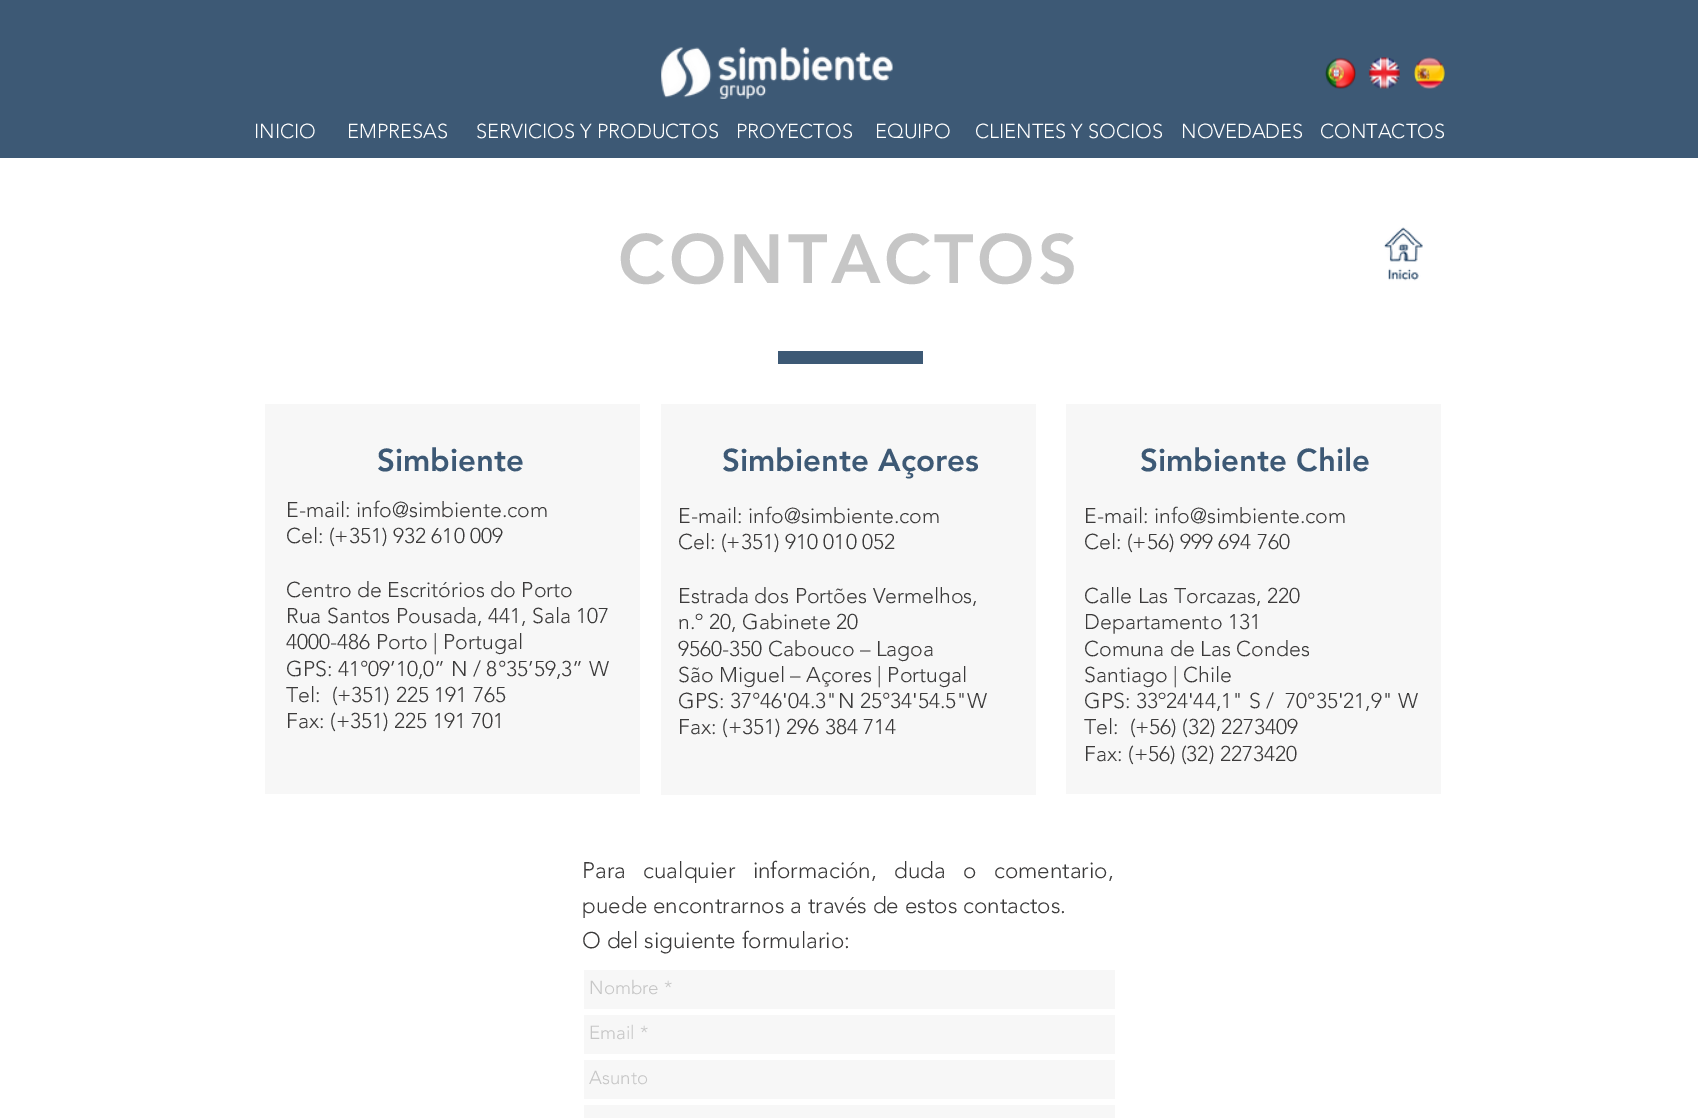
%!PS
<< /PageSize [1698 1118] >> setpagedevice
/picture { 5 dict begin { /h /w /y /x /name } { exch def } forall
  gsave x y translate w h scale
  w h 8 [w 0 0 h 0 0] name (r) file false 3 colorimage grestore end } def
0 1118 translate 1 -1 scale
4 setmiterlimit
1 setgray
0 0 1698 1118 rectfill
0.239 0.349 0.459 setrgbcolor
0 0 1698 158 rectfill
(img1.rgb) 661 47 232 52 picture
(img2.rgb) 1325 57 31 32 picture
(img3.rgb) 1368 57 32 32 picture
(img4.rgb) 1414 57 31 32 picture
/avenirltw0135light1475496-Light [20 0 0 -20 0 0] selectfont
1 setgray
254 138 moveto (INICIO) show
347 138 moveto (EMPRESAS) show
476 138 moveto (SERVICIOS Y PRODUCTOS) show
736 138 moveto (PROYECTOS) show
875 138 moveto (EQUIPO) show
975 138 moveto (CLIENTES Y SOCIOS) show
1181 138 moveto (NOVEDADES) show
1320 138 moveto (CONTACTOS) show
/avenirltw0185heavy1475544-Black [68.75 0 0 -68.75 0 0] selectfont
0.776 setgray
618 283 moveto 3.5 0 (CONTACTOS) ashow
(img5.rgb) 1383 227 40 54 picture
0.239 0.349 0.459 setrgbcolor
778 351 145 13 rectfill
0.969 setgray
265 404 375 390 rectfill
/avenirltw0185heavy1475544-Black [31.25 0 0 -31.25 0 0] selectfont
0.239 0.349 0.459 setrgbcolor
377 471 moveto (Simbiente) show
/avenirltw0135light1475496-Light [21.25 0 0 -21.25 0 0] selectfont
0.231 0.227 0.227 setrgbcolor
286 517 moveto (E-mail: info@simbiente.com) show
286 543 moveto (Cel: \(+351\) 932 610 009) show
286 597 moveto (Centro de Escritórios do Porto) show
286 623 moveto (Rua Santos Pousada, 441, Sala 107) show
286 649 moveto (4000-486 Porto | Portugal) show
286 676 moveto (GPS: 41°09’10,0” N / 8°35’59,3” W) show
286 702 moveto (Tel:  \(+351\) 225 191 765) show
286 728 moveto (Fax: \(+351\) 225 191 701) show
0.969 setgray
661 404 375 391 rectfill
/avenirltw0185heavy1475544-Black [31.25 0 0 -31.25 0 0] selectfont
0.239 0.349 0.459 setrgbcolor
722 471 moveto (Simbiente Açores) show
/avenirltw0135light1475496-Light [21.25 0 0 -21.25 0 0] selectfont
0.231 0.227 0.227 setrgbcolor
678 523 moveto (E-mail: info@simbiente.com) show
678 549 moveto (Cel: \(+351\) 910 010 052) show
678 603 moveto (Estrada dos Portões Vermelhos,) show
678 629 moveto (n.º 20, Gabinete 20) show
678 656 moveto (9560-350 Cabouco – Lagoa) show
678 682 moveto (São Miguel – Açores | Portugal) show
678 708 moveto (GPS: 37°46'04.3"N 25°34'54.5"W) show
678 734 moveto (Fax: \(+351\) 296 384 714) show
0.969 setgray
1066 404 375 390 rectfill
/avenirltw0185heavy1475544-Black [31.25 0 0 -31.25 0 0] selectfont
0.239 0.349 0.459 setrgbcolor
1140 471 moveto (Simbiente Chile) show
/avenirltw0135light1475496-Light [21.25 0 0 -21.25 0 0] selectfont
0.231 0.227 0.227 setrgbcolor
1084 523 moveto (E-mail: info@simbiente.com) show
1084 549 moveto (Cel: \(+56\) 999 694 760) show
1084 603 moveto (Calle Las Torcazas, 220) show
1084 629 moveto (Departamento 131) show
1084 656 moveto (Comuna de Las Condes) show
1084 682 moveto (Santiago | Chile) show
1084 708 moveto (GPS: 33º24'44,1" S /  70°35'21,9" W) show
1084 734 moveto (Tel:  \(+56\) \(32\) 2273409) show
1084 761 moveto (Fax: \(+56\) \(32\) 2273420) show
/avenirltw0135light1475496-Light [22.5 0 0 -22.5 0 0] selectfont
582 878 moveto 11.5 0 32 (Para cualquier información, duda o comentario,) widthshow
582 913 moveto (puede encontrarnos a través de estos contactos.) show
582 948 moveto (O del siguiente formulario:) show
0.969 setgray
584 970 531 39 rectfill
/avenirltw0135light1475496-Light [18.75 0 0 -18.75 0 0] selectfont
0.776 setgray
589 994 moveto (Nombre *) show
0.969 setgray
584 1015 531 39 rectfill
0.776 setgray
589 1039 moveto (Email *) show
0.969 setgray
584 1060 531 39 rectfill
0.776 setgray
589 1084 moveto (Asunto) show
0.969 setgray
584 1105 531 13 rectfill
showpage
